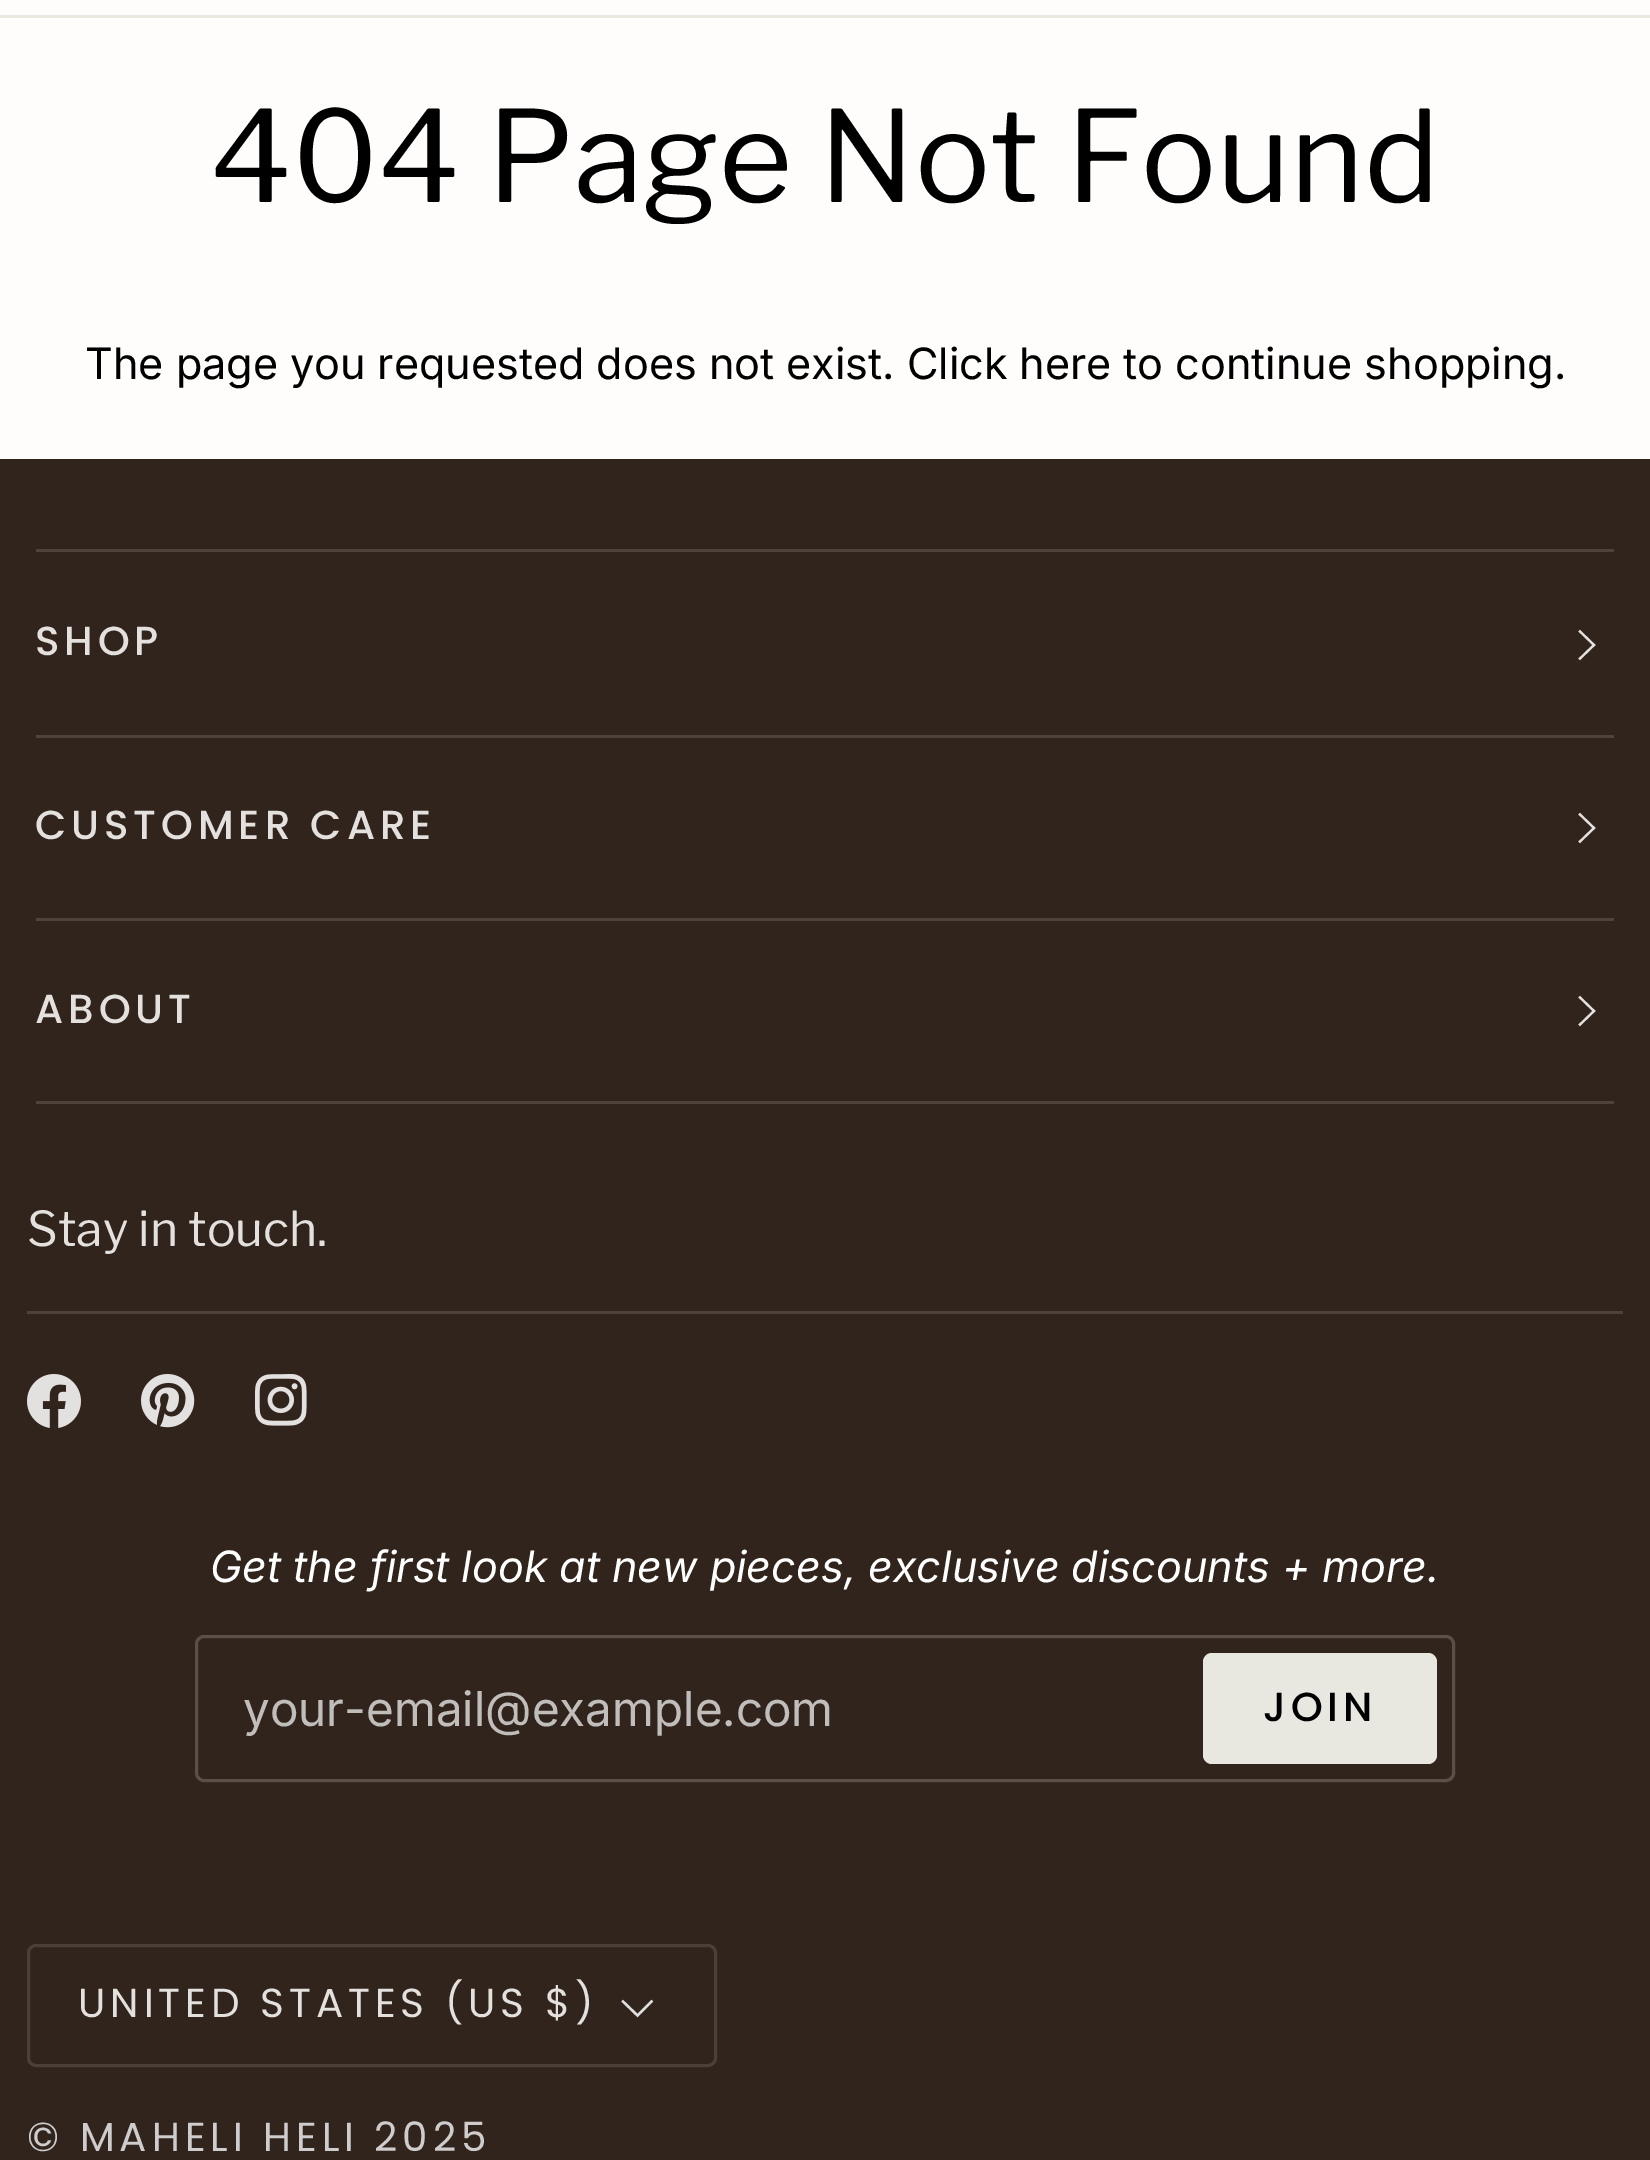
%!PS
<< /PageSize [1650 2160] >> setpagedevice
/roundrect { 5 dict begin { /r /h /w /y /x } { exch def } forall
  x r add y moveto x w add y 2 copy h add r arct x w add y h add x 1 index r arct
  x y h add x y r arct x y 2 copy exch w add exch r arct closepath end } def
/picture { 5 dict begin { /h /w /y /x /name } { exch def } forall
  gsave x y translate w h scale
  w h 8 [w 0 0 h 0 0] name (r) file false 3 colorimage grestore end } def
0 2160 translate 1 -1 scale
4 setmiterlimit
1 0.992 0.988 setrgbcolor
0 0 1650 2160 rectfill
0.91 0.91 0.882 setrgbcolor
0 15 1650 3 rectfill
/LibreFranklin-Regular [126 0 0 -126 0 0] selectfont
0 setgray
210 202 moveto (404 Page Not Found) show
/Inter-Regular [43.2 0 0 -43.2 0 0] selectfont
85 379 moveto -0.25 0 32 (The page you requested does not exist. Click) widthshow
1019 379 moveto (here) show
1123 379 moveto (to continue shopping.) show
0.188 0.141 0.11 setrgbcolor
0 459 1650 1701 rectfill
0.306 0.263 0.235 setrgbcolor
36 549 1578 3 rectfill
36 735 1578 3 rectfill
/Poppins-Medium [40.5 0 0 -40.5 0 0] selectfont
0.89 0.878 0.871 setrgbcolor
35 655 moveto 4.9 0 (SHOP) ashow
2.2 setlinewidth
2 setlinecap
newpath 1580 658.5 moveto 1594 645 lineto 1580 631.5 lineto stroke
0.306 0.263 0.235 setrgbcolor
36 918 1578 3 rectfill
0.89 0.878 0.871 setrgbcolor
35 839 moveto 4.9 0 (CUSTOMER CARE) ashow
newpath 1580 841.5 moveto 1594 828 lineto 1580 814.5 lineto stroke
0.306 0.263 0.235 setrgbcolor
36 1101 1578 3 rectfill
0.89 0.878 0.871 setrgbcolor
35 1023 moveto 4.9 0 (ABOUT) ashow
newpath 1580 1024.5 moveto 1594 1011 lineto 1580 997.5 lineto stroke
/LibreFranklin-Regular [48 0 0 -48 0 0] selectfont
27 1246 moveto (Stay in touch.) show
0.306 0.263 0.235 setrgbcolor
27 1311 1596 3 rectfill
(img1.rgb) 27 1374 54 54 picture
(img2.rgb) 141 1374 54 54 picture
(img3.rgb) 255 1374 52 52 picture
/Inter-Italic [43.2 0 0 -43.2 0 0] selectfont
1 setgray
210 1582 moveto -0.25 0 32 (Get the first look at new pieces, exclusive discounts + more.) widthshow
0.349 0.314 0.286 setrgbcolor
3 setlinewidth
0 setlinecap
196.5 1636.5 1257 144 7.5 roundrect stroke
/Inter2-Regular [48 0 0 -48 0 0] selectfont
0.757 0.741 0.733 setrgbcolor
243 1726 moveto (your-email@example.com) show
0.91 0.91 0.882 setrgbcolor
1203 1653 234 111 9 roundrect fill
/Poppins-Medium [40.5 0 0 -40.5 0 0] selectfont
0 setgray
1263 1721 moveto 4.9 0 (JOIN) ashow
0.29 0.251 0.224 setrgbcolor
28.5 1945.5 687 120 7.5 roundrect stroke
/Poppins-Regular [40.5 0 0 -40.5 0 0] selectfont
0.89 0.878 0.871 setrgbcolor
78 2017 moveto 4.9 0 (UNITED STATES \(US $\)) ashow
0.875 setgray
2.4 setlinewidth
2 setlinecap
newpath 623 2001.5 moveto 637.5 2015.5 lineto 651.5 2001.5 lineto stroke
0.808 0.8 0.8 setrgbcolor
27 2151 moveto 4.9 0 (© MAHELI HELI) ashow
374 2151 moveto 4.9 0 (2025) ashow
showpage
